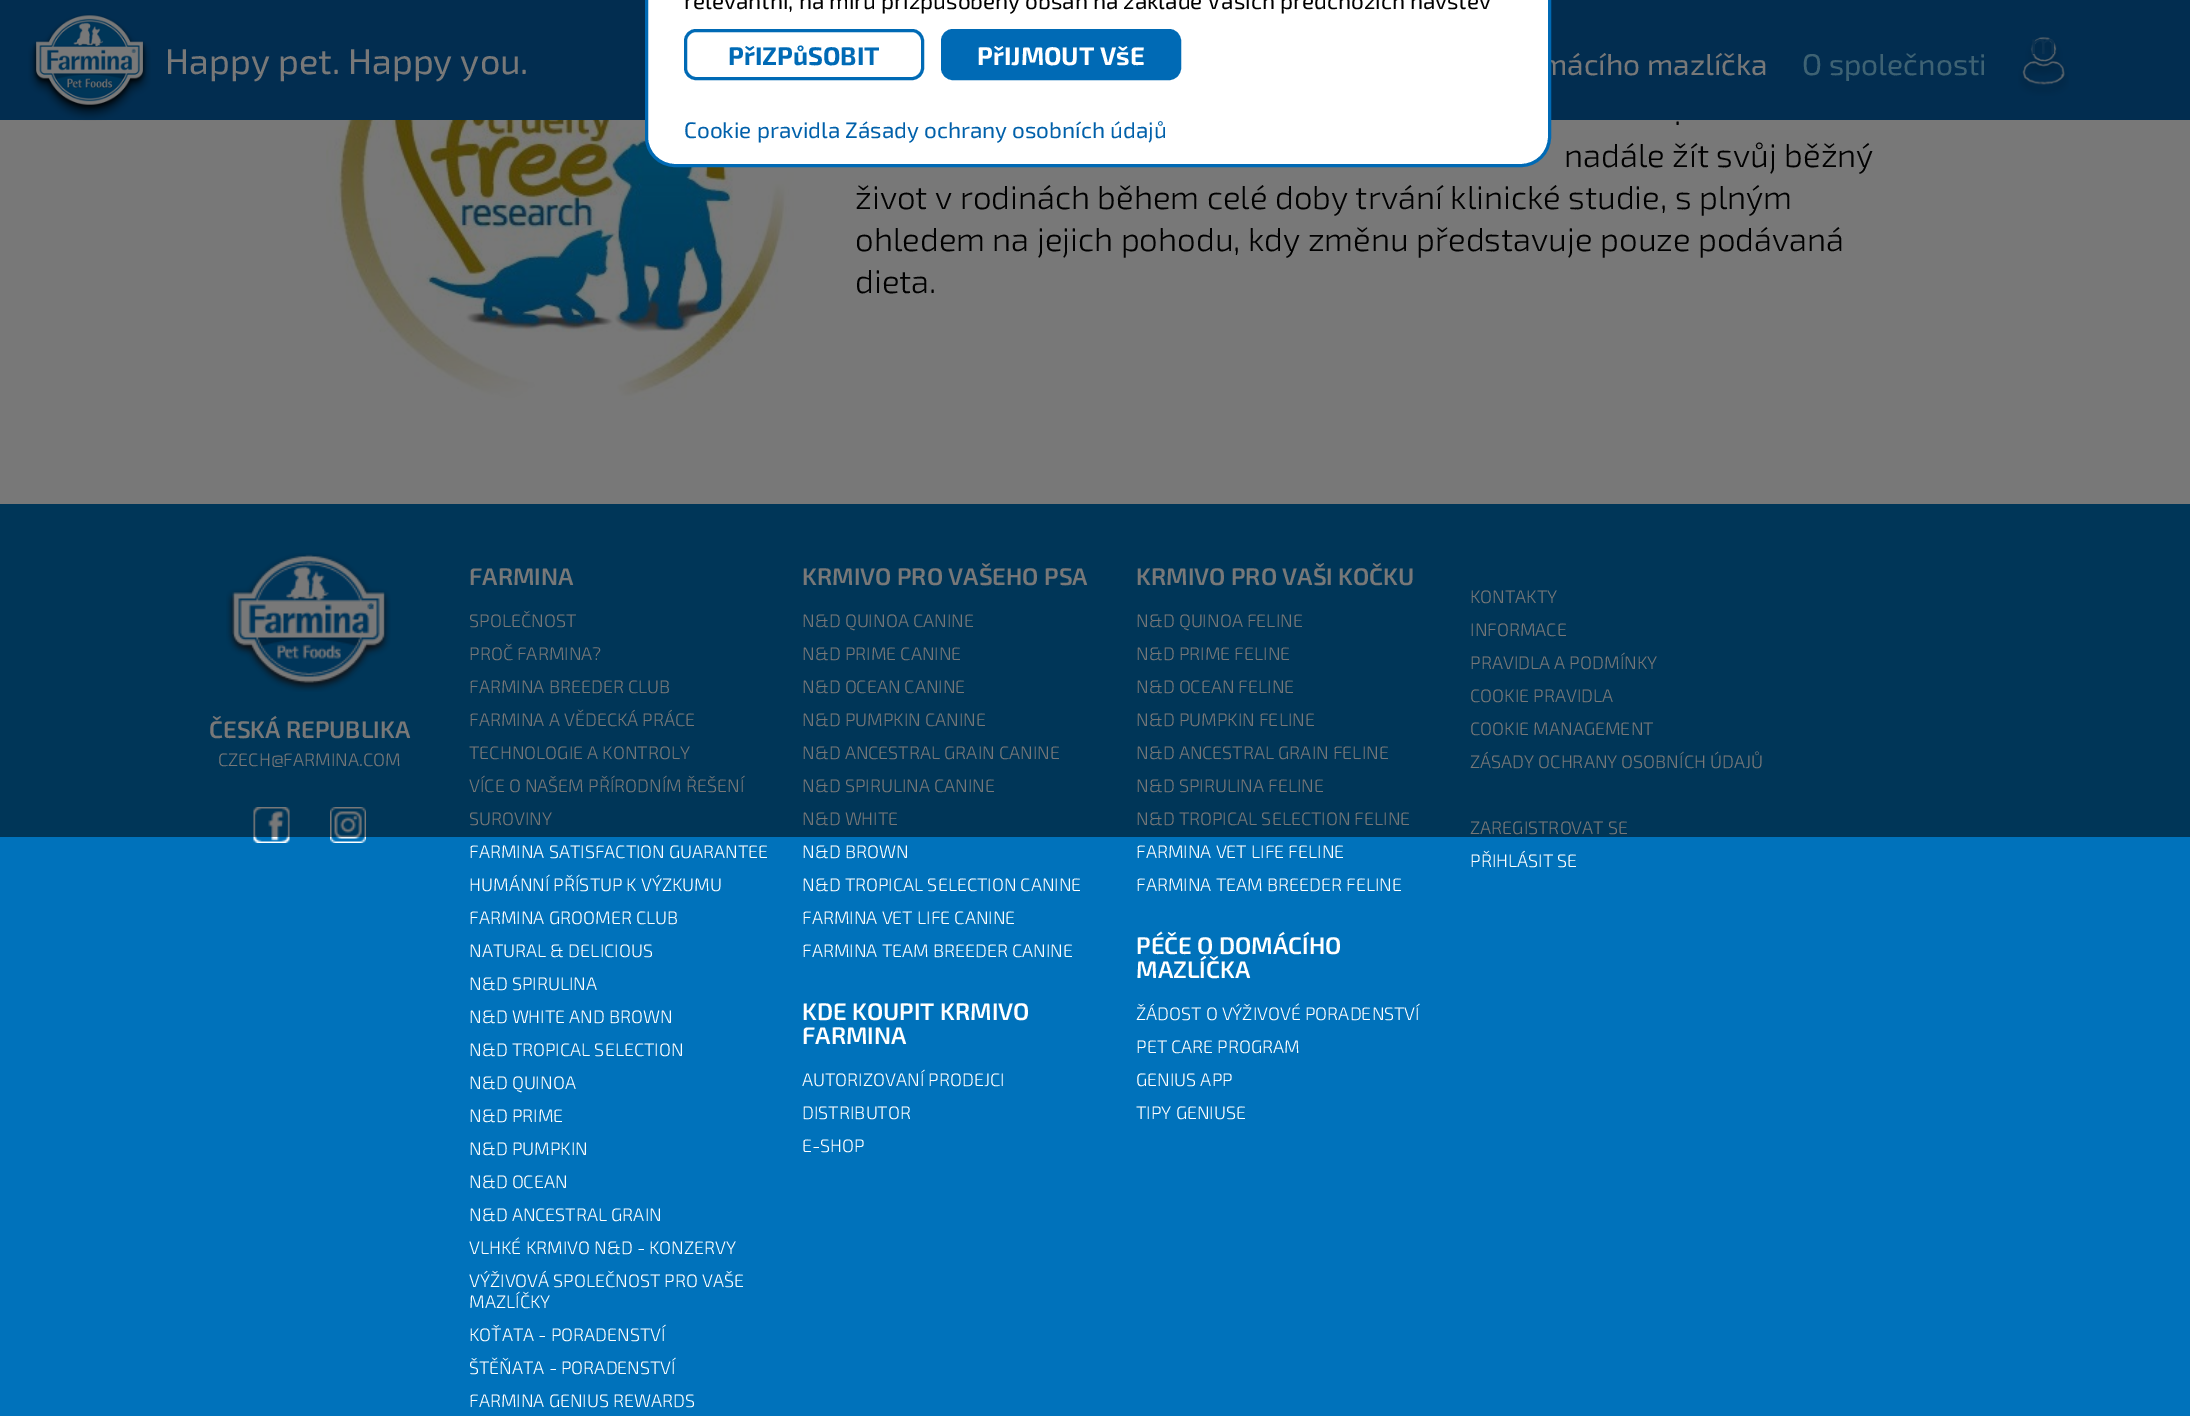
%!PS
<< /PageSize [2190 1416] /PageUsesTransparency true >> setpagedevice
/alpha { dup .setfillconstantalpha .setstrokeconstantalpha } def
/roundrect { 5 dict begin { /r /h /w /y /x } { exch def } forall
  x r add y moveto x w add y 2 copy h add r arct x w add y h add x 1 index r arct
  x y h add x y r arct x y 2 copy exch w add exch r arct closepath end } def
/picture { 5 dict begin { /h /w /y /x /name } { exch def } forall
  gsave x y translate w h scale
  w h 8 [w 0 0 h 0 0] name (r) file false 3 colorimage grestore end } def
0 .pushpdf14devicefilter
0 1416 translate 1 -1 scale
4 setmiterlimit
1 setgray
0 0 2190 1416 rectfill
0.02 0.376 0.667 setrgbcolor
0 0 2190 120 rectfill
(img1.rgb) 28 14 123 107 picture
/Exo2-Regular [36 0 0 -36 0 0] selectfont
1 setgray
165 74 moveto (Happy pet. Happy you.) show
(img2.rgb) 2018 37 51 59 picture
/Exo2-Regular [30 0 0 -30 0 0] selectfont
0.098 0.416 0.678 setrgbcolor
2030 54 moveto (m) show
1 setgray
1541 75 moveto (mácího mazlíčka) show
0.514 0.816 0.961 setrgbcolor
1802 75 moveto (O společnosti) show
(img3.rgb) 326 120 468 280 picture
/Exo2-Light [33 0 0 -33 0 0] selectfont
0 setgray
1674 125 moveto (.) show
1564 167 moveto (nadále žít svůj běžný) show
855 209 moveto (život v rodinách během celé doby trvání klinické studie, s plným) show
855 251 moveto (ohledem na jejich pohodu, kdy změnu představuje pouze podávaná) show
855 293 moveto (dieta.) show
0 0.447 0.733 setrgbcolor
0 504 2190 912 rectfill
(img4.rgb) 226 553 165 139 picture
/Exo2-SemiBold [24 0 0 -24 0 0] selectfont
1 setgray
209 738 moveto (ČESKÁ REPUBLIKA) show
/Exo2-Light [18 0 0 -18 0 0] selectfont
218 766 moveto (CZECH@FARMINA.COM) show
(img5.rgb) 253 807 37 36 picture
(img6.rgb) 330 807 36 36 picture
/Exo2-SemiBold [24 0 0 -24 0 0] selectfont
469 585 moveto (FARMINA) show
/Exo2-Light [18 0 0 -18 0 0] selectfont
469 627 moveto (SPOLEČNOST) show
469 660 moveto (PROČ FARMINA?) show
469 693 moveto (FARMINA BREEDER CLUB) show
469 726 moveto (FARMINA A VĚDECKÁ PRÁCE) show
469 759 moveto (TECHNOLOGIE A KONTROLY) show
469 792 moveto (VÍCE O NAŠEM PŘÍRODNÍM ŘEŠENÍ) show
469 825 moveto (SUROVINY) show
/Exo2-SemiBold [24 0 0 -24 0 0] selectfont
802 585 moveto (KRMIVO PRO VAŠEHO PSA) show
/Exo2-Light [18 0 0 -18 0 0] selectfont
802 627 moveto (N&D QUINOA CANINE) show
802 660 moveto (N&D PRIME CANINE) show
802 693 moveto (N&D OCEAN CANINE) show
802 726 moveto (N&D PUMPKIN CANINE) show
802 759 moveto (N&D ANCESTRAL GRAIN CANINE) show
802 792 moveto (N&D SPIRULINA CANINE) show
802 825 moveto (N&D WHITE) show
/Exo2-SemiBold [24 0 0 -24 0 0] selectfont
1136 585 moveto (KRMIVO PRO VAŠI KOČKU) show
/Exo2-Light [18 0 0 -18 0 0] selectfont
1136 627 moveto (N&D QUINOA FELINE) show
1136 660 moveto (N&D PRIME FELINE) show
1136 693 moveto (N&D OCEAN FELINE) show
1136 726 moveto (N&D PUMPKIN FELINE) show
1136 759 moveto (N&D ANCESTRAL GRAIN FELINE) show
1136 792 moveto (N&D SPIRULINA FELINE) show
1136 825 moveto (N&D TROPICAL SELECTION FELINE) show
1470 603 moveto (KONTAKTY) show
1470 636 moveto (INFORMACE) show
1470 669 moveto (PRAVIDLA A PODMÍNKY) show
1470 702 moveto (COOKIE PRAVIDLA) show
1470 735 moveto (COOKIE MANAGEMENT) show
1470 768 moveto (ZÁSADY OCHRANY OSOBNÍCH ÚDAJŮ) show
1470 834 moveto (ZAREGISTROVAT SE) show
0.53 alpha
0 setgray
0 0 2190 837 rectfill
1 alpha
1 setgray
646.5 -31.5 903 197 28.5 roundrect gsave fill grestore
0 0.416 0.71 setrgbcolor
3 setlinewidth
stroke
/Exo2-Regular [22.5 0 0 -22.5 0 0] selectfont
0 setgray
684 9 moveto (relevantní, na míru přizpůsobený obsah na základě Vašich předchozích návštěv) show
0 0.416 0.71 setrgbcolor
685.5 30.5 237 48 10.5 roundrect stroke
/Exo2-Bold [25.5 0 0 -25.5 0 0] selectfont
728 65 moveto (PřIZPůSOBIT) show
942.5 30.5 237 48 10.5 roundrect gsave fill grestore
stroke
1 setgray
977 65 moveto (PřIJMOUT VšE) show
/Exo2-Regular [22.5 0 0 -22.5 0 0] selectfont
0 0.376 0.667 setrgbcolor
684 138 moveto (Cookie pravidla Zásady ochrany osobních údajů) show
/Exo2-Light [18 0 0 -18 0 0] selectfont
1 setgray
469 858 moveto (FARMINA SATISFACTION GUARANTEE) show
469 891 moveto (HUMÁNNÍ PŘÍSTUP K VÝZKUMU) show
469 924 moveto (FARMINA GROOMER CLUB) show
469 957 moveto (NATURAL & DELICIOUS) show
469 990 moveto (N&D SPIRULINA) show
469 1023 moveto (N&D WHITE AND BROWN) show
469 1056 moveto (N&D TROPICAL SELECTION) show
469 1089 moveto (N&D QUINOA) show
469 1122 moveto (N&D PRIME) show
469 1155 moveto (N&D PUMPKIN) show
469 1188 moveto (N&D OCEAN) show
469 1221 moveto (N&D ANCESTRAL GRAIN) show
469 1254 moveto (VLHKÉ KRMIVO N&D - KONZERVY) show
469 1287 moveto (VÝŽIVOVÁ SPOLEČNOST PRO VAŠE) show
469 1308 moveto (MAZLÍČKY) show
469 1341 moveto (KOŤATA - PORADENSTVÍ) show
469 1374 moveto (ŠTĚŇATA - PORADENSTVÍ) show
469 1407 moveto (FARMINA GENIUS REWARDS) show
802 858 moveto (N&D BROWN) show
802 891 moveto (N&D TROPICAL SELECTION CANINE) show
802 924 moveto (FARMINA VET LIFE CANINE) show
802 957 moveto (FARMINA TEAM BREEDER CANINE) show
/Exo2-SemiBold [24 0 0 -24 0 0] selectfont
802 1020 moveto (KDE KOUPIT KRMIVO) show
802 1044 moveto (FARMINA) show
/Exo2-Light [18 0 0 -18 0 0] selectfont
802 1086 moveto (AUTORIZOVANÍ PRODEJCI) show
802 1119 moveto (DISTRIBUTOR) show
802 1152 moveto (E-SHOP) show
1136 858 moveto (FARMINA VET LIFE FELINE) show
1136 891 moveto (FARMINA TEAM BREEDER FELINE) show
/Exo2-SemiBold [24 0 0 -24 0 0] selectfont
1136 954 moveto (PÉČE O DOMÁCÍHO) show
1136 978 moveto (MAZLÍČKA) show
/Exo2-Light [18 0 0 -18 0 0] selectfont
1136 1020 moveto (ŽÁDOST O VÝŽIVOVÉ PORADENSTVÍ) show
1136 1053 moveto (PET CARE PROGRAM) show
1136 1086 moveto (GENIUS APP) show
1136 1119 moveto (TIPY GENIUSE) show
1470 867 moveto (PŘIHLÁSIT SE) show
.poppdf14devicefilter showpage
